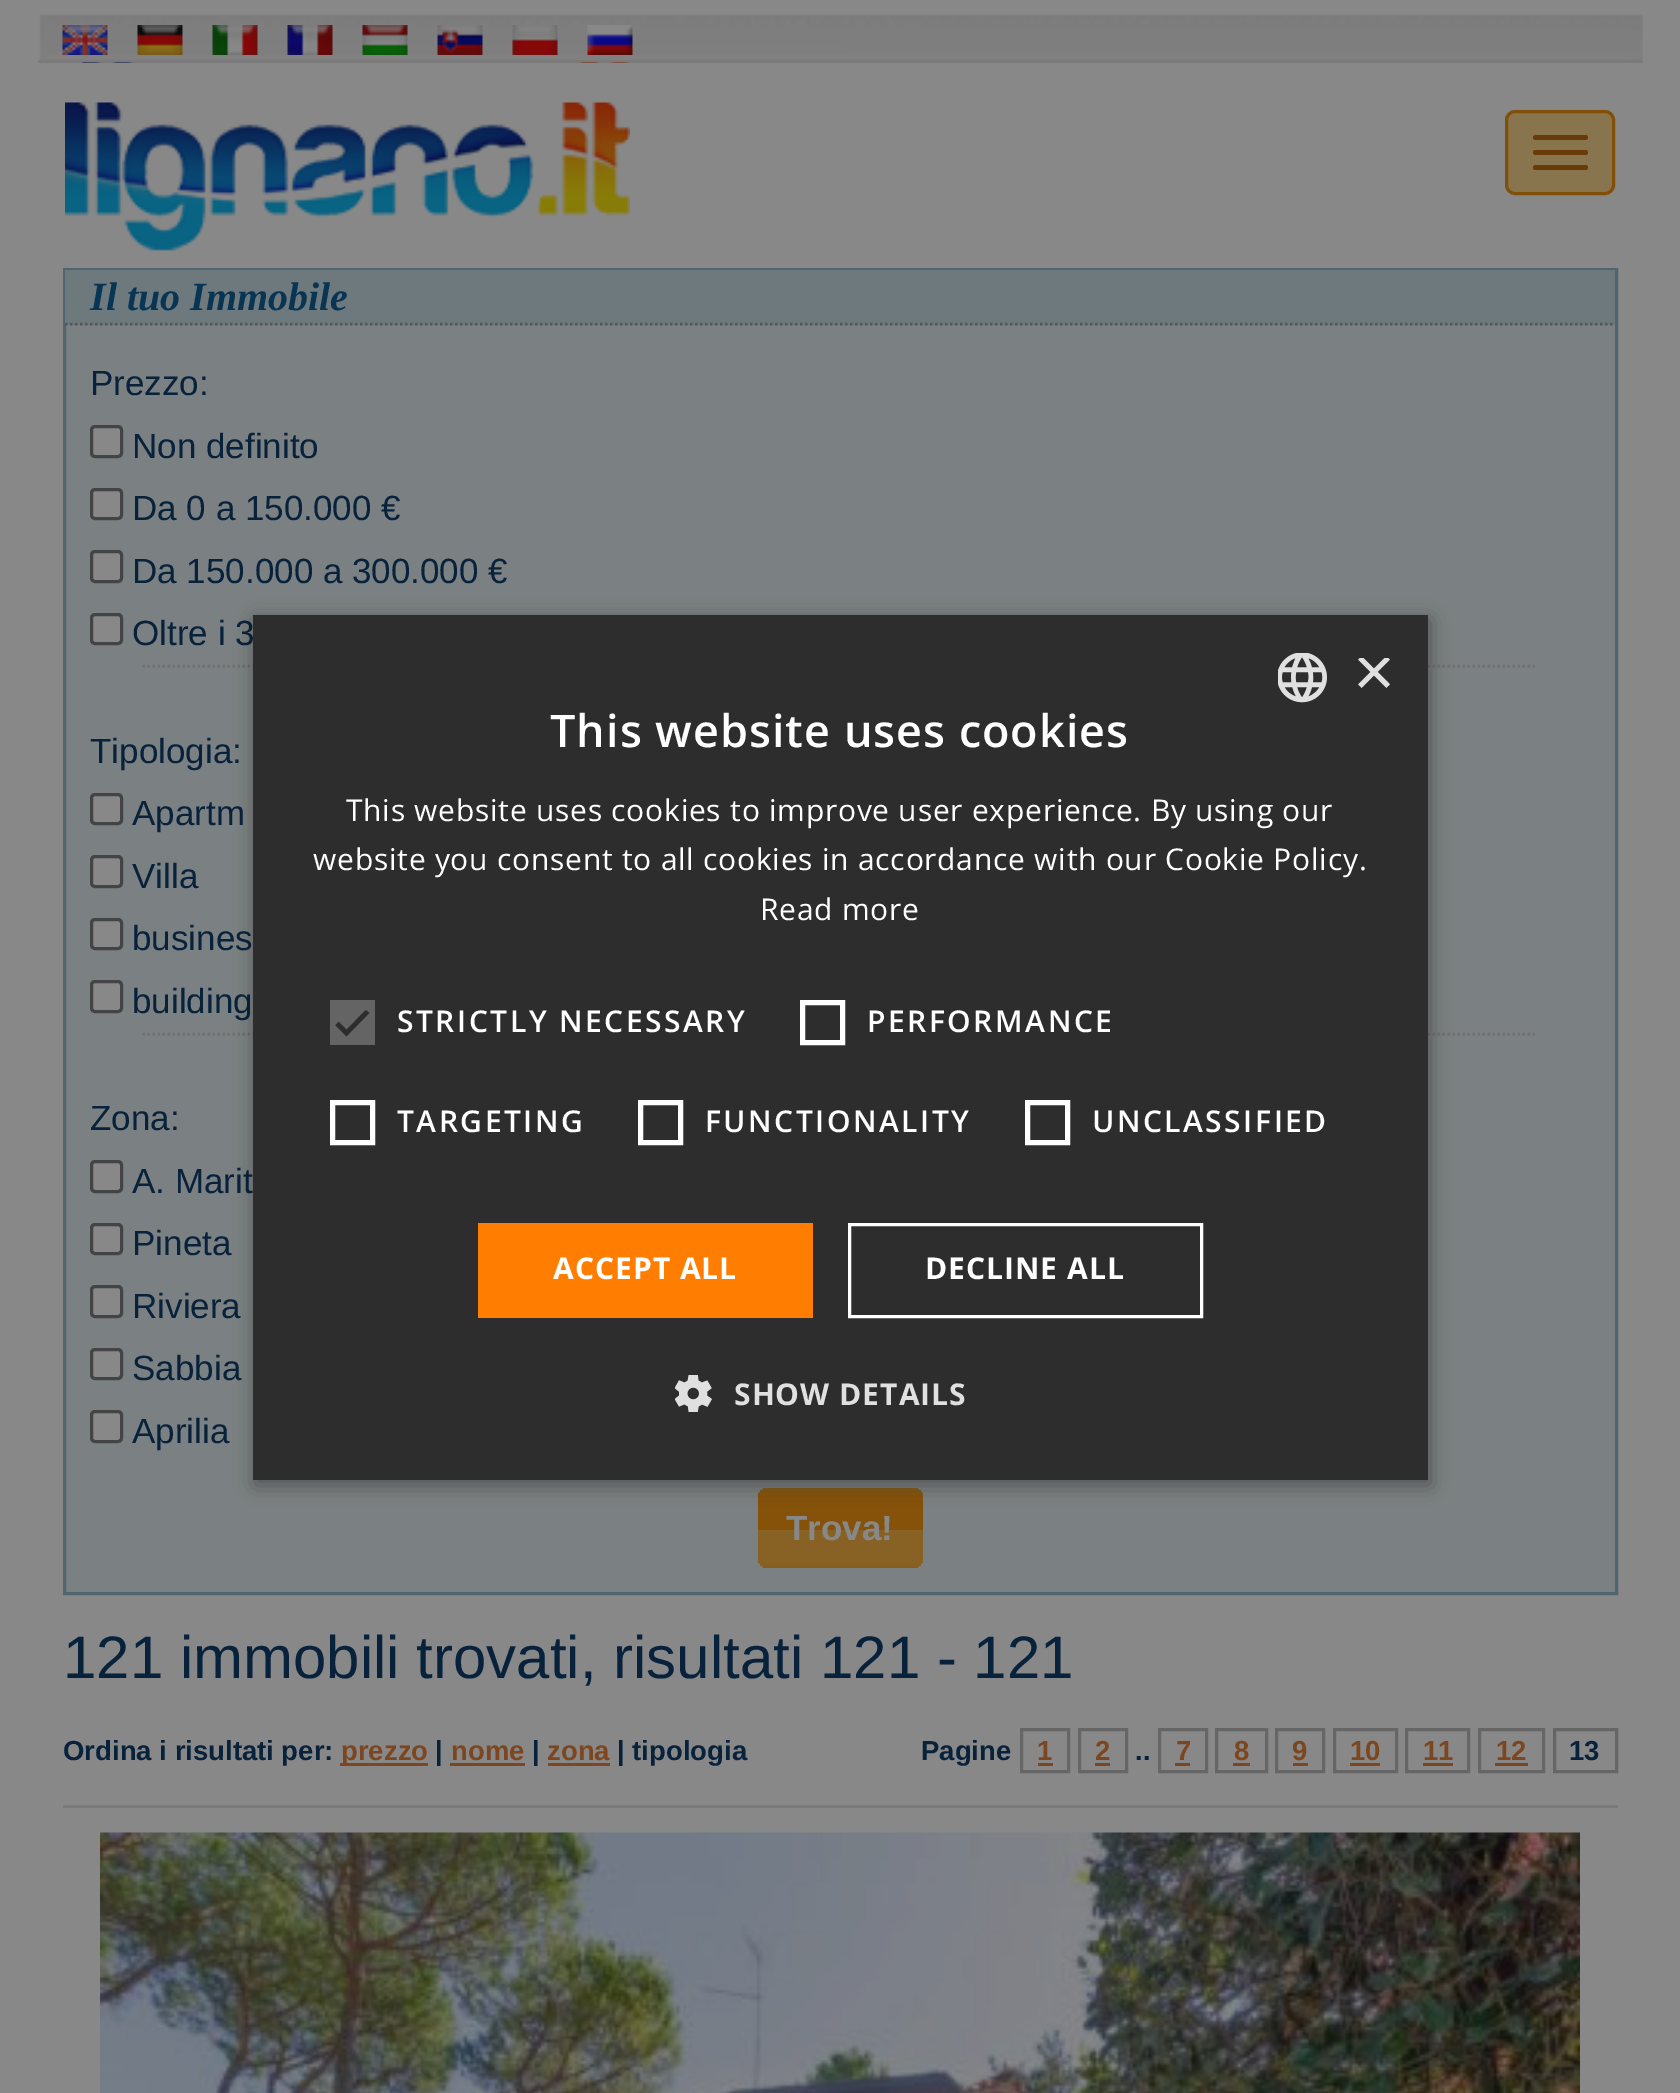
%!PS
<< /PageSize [1680 2093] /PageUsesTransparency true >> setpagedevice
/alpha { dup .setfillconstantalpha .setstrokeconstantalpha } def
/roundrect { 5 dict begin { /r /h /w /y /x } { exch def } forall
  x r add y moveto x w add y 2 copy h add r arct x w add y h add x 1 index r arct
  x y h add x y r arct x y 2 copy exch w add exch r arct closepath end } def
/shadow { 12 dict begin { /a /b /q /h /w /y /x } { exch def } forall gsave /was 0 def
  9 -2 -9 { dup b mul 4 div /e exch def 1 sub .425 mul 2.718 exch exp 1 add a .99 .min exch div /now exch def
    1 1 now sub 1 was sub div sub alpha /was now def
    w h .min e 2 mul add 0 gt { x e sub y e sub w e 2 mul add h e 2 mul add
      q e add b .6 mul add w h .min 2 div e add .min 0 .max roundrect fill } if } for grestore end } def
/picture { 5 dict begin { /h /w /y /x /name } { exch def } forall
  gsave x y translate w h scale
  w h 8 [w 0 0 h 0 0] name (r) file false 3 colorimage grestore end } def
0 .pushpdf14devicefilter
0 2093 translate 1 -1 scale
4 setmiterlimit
0.533 setgray
0 0 1680 2093 rectfill
(img1.rgb) 39 14 1604 46 picture
0.478 setgray
38 60 1605 3 rectfill
(img2.rgb) 62 25 46 30 picture
(img3.rgb) 137 25 46 30 picture
(img4.rgb) 212 25 46 30 picture
(img5.rgb) 287 25 46 30 picture
(img6.rgb) 362 25 46 30 picture
(img7.rgb) 437 25 46 30 picture
(img8.rgb) 512 25 46 30 picture
(img9.rgb) 587 25 46 30 picture
(img10.rgb) 82 62 549 1 picture
(img11.rgb) 65 102 565 149 picture
0.533 0.459 0.302 setrgbcolor
1506.5 111.5 107 82 8.5 roundrect gsave fill grestore
0.51 0.31 0.035 setrgbcolor
3 setlinewidth
stroke
0.412 0.231 0.035 setrgbcolor
1533 135 55 5 2.5 roundrect fill
1533 150 55 5 2.5 roundrect fill
1533 165 55 5 2.5 roundrect fill
0.482 0.506 0.51 setrgbcolor
66 325 1549 1267 rectfill
0.314 0.396 0.439 setrgbcolor
64.5 269.5 1552 1324 rectstroke
0.427 0.475 0.486 setrgbcolor
65 270 1550 55 rectfill
0.337 setgray
2.5 setlinewidth
[2.5 2.5] 0 setdash
newpath 65 324 moveto 1615 324 lineto stroke
/LiberationSerif-BoldItalic [40 0 0 -40 0 0] selectfont
0.035 0.208 0.329 setrgbcolor
90 310 moveto (Il tuo Immobile) show
/LiberationSans-Regular [35 0 0 -35 0 0] selectfont
0.035 0.133 0.235 setrgbcolor
90 395 moveto (Prezzo:) show
0.533 setgray
91.5 426.5 30 30 3.5 roundrect gsave fill grestore
0.267 setgray
3 setlinewidth
[] 0 setdash
stroke
0.035 0.133 0.235 setrgbcolor
132 458 moveto (Non definito) show
0.533 setgray
91.5 489.5 30 29 3.5 roundrect gsave fill grestore
0.267 setgray
stroke
0.035 0.133 0.235 setrgbcolor
132 520 moveto (Da 0 a 150.000 €) show
0.533 setgray
91.5 551.5 30 30 3.5 roundrect gsave fill grestore
0.267 setgray
stroke
0.035 0.133 0.235 setrgbcolor
132 583 moveto (Da 150.000 a 300.000 €) show
0.533 setgray
91.5 614.5 30 29 3.5 roundrect gsave fill grestore
0.267 setgray
stroke
0.035 0.133 0.235 setrgbcolor
132 645 moveto (Oltre i 3) show
0.435 setgray
2.5 setlinewidth
[2.5 2.5] 0 setdash
newpath 142.5 666 moveto 1537.5 666 lineto stroke
0.035 0.133 0.235 setrgbcolor
90 763 moveto (Tipologia:) show
0.533 setgray
91.5 794.5 30 29 3.5 roundrect gsave fill grestore
0.267 setgray
3 setlinewidth
[] 0 setdash
stroke
0.035 0.133 0.235 setrgbcolor
132 825 moveto (Apartm) show
0.533 setgray
91.5 856.5 30 30 3.5 roundrect gsave fill grestore
0.267 setgray
stroke
0.035 0.133 0.235 setrgbcolor
132 888 moveto (Villa) show
0.533 setgray
91.5 919.5 30 29 3.5 roundrect gsave fill grestore
0.267 setgray
stroke
0.035 0.133 0.235 setrgbcolor
132 950 moveto (busines) show
0.533 setgray
91.5 981.5 30 30 3.5 roundrect gsave fill grestore
0.267 setgray
stroke
0.035 0.133 0.235 setrgbcolor
132 1013 moveto (building) show
0.435 setgray
2.5 setlinewidth
[2.5 2.5] 0 setdash
newpath 142.5 1034 moveto 1537.5 1034 lineto stroke
0.035 0.133 0.235 setrgbcolor
90 1130 moveto (Zona:) show
0.533 setgray
91.5 1161.5 30 30 3.5 roundrect gsave fill grestore
0.267 setgray
3 setlinewidth
[] 0 setdash
stroke
0.035 0.133 0.235 setrgbcolor
132 1193 moveto (A. Marit) show
0.533 setgray
91.5 1224.5 30 29 3.5 roundrect gsave fill grestore
0.267 setgray
stroke
0.035 0.133 0.235 setrgbcolor
132 1255 moveto (Pineta) show
0.533 setgray
91.5 1286.5 30 30 3.5 roundrect gsave fill grestore
0.267 setgray
stroke
0.035 0.133 0.235 setrgbcolor
132 1318 moveto (Riviera) show
0.533 setgray
91.5 1349.5 30 29 3.5 roundrect gsave fill grestore
0.267 setgray
stroke
0.035 0.133 0.235 setrgbcolor
132 1380 moveto (Sabbia) show
0.533 setgray
91.5 1411.5 30 30 3.5 roundrect gsave fill grestore
0.267 setgray
stroke
0.035 0.133 0.235 setrgbcolor
132 1443 moveto (Aprilia) show
gsave newpath 768 1488 moveto 913 1488 lineto 918.5 1488 923 1492.5 923 1498 curveto 923 1530 lineto 758 1530 lineto 758 1498 lineto 758 1492.5 762.5 1488 768 1488 curveto closepath clip newpath
<< /ShadingType 2 /ColorSpace /DeviceRGB /Coords [840 1450 840 1530] /Extend [true true] /Function << /FunctionType 3 /Domain [0 1] /Functions [<< /FunctionType 2 /Domain [0 1] /C0 [0.533 0.384 0.141] /C1 [0.533 0.384 0.141] /N 1 >> << /FunctionType 2 /Domain [0 1] /C0 [0.533 0.384 0.141] /C1 [0.525 0.322 0.035] /N 1 >> << /FunctionType 2 /Domain [0 1] /C0 [0.525 0.322 0.035] /C1 [0.525 0.322 0.035] /N 1 >>] /Bounds [0.42 0.59] /Encode [0 1 0 1 0 1] >> >> shfill grestore
gsave newpath 758 1530 moveto 923 1530 lineto 923 1558 lineto 923 1563.5 918.5 1568 913 1568 curveto 768 1568 lineto 762.5 1568 758 1563.5 758 1558 curveto closepath clip newpath
<< /ShadingType 2 /ColorSpace /DeviceRGB /Coords [840 1530 840 1610] /Extend [true true] /Function << /FunctionType 3 /Domain [0 1] /Functions [<< /FunctionType 2 /Domain [0 1] /C0 [0.533 0.384 0.141] /C1 [0.533 0.384 0.141] /N 1 >> << /FunctionType 2 /Domain [0 1] /C0 [0.533 0.384 0.141] /C1 [0.525 0.322 0.035] /N 1 >> << /FunctionType 2 /Domain [0 1] /C0 [0.525 0.322 0.035] /C1 [0.525 0.322 0.035] /N 1 >>] /Bounds [0.42 0.59] /Encode [0 1 0 1 0 1] >> >> shfill grestore
/LiberationSans-Bold [35 0 0 -35 0 0] selectfont
0.533 setgray
786 1540 moveto (Trova!) show
/LiberationSans-Regular [60 0 0 -60 0 0] selectfont
0.035 0.133 0.235 setrgbcolor
63 1678 moveto (121 immobili trovati, risultati 121 - 121) show
0.478 setgray
63 1805 1555 3 rectfill
/LiberationSans-Bold [27.5 0 0 -27.5 0 0] selectfont
0.035 0.133 0.235 setrgbcolor
63 1760 moveto (Ordina i risultati per:) show
0.486 0.278 0.125 setrgbcolor
340 1763 88 3 rectfill
341 1760 moveto (prezzo) show
0.035 0.133 0.235 setrgbcolor
435 1760 moveto (|) show
0.486 0.278 0.125 setrgbcolor
451 1760 moveto (nome) show
450 1763 75 3 rectfill
0.035 0.133 0.235 setrgbcolor
532 1760 moveto (|) show
0.486 0.278 0.125 setrgbcolor
547 1760 moveto (zona) show
548 1763 62 3 rectfill
0.035 0.133 0.235 setrgbcolor
617 1760 moveto (| tipologia) show
921 1760 moveto (Pagine) show
0.4 setgray
1021.5 1729.5 47 42 rectstroke
0.486 0.278 0.125 setrgbcolor
1037 1760 moveto (1) show
1038 1763 15 3 rectfill
0.4 setgray
1079.5 1729.5 47 42 rectstroke
0.486 0.278 0.125 setrgbcolor
1095 1760 moveto (2) show
1095 1763 15 3 rectfill
0.035 0.133 0.235 setrgbcolor
1135 1760 moveto (..) show
0.4 setgray
1159.5 1729.5 47 42 rectstroke
0.486 0.278 0.125 setrgbcolor
1176 1760 moveto (7) show
1175 1763 15 3 rectfill
0.4 setgray
1216.5 1729.5 50 42 rectstroke
0.486 0.278 0.125 setrgbcolor
1234 1760 moveto (8) show
1233 1763 17 3 rectfill
0.4 setgray
1276.5 1729.5 47 42 rectstroke
0.486 0.278 0.125 setrgbcolor
1292 1760 moveto (9) show
1293 1763 15 3 rectfill
0.4 setgray
1334.5 1729.5 62 42 rectstroke
0.486 0.278 0.125 setrgbcolor
1350 1760 moveto (10) show
1350 1763 30 3 rectfill
0.4 setgray
1406.5 1729.5 62 42 rectstroke
0.486 0.278 0.125 setrgbcolor
1423 1760 moveto (11) show
1423 1763 30 3 rectfill
0.4 setgray
1479.5 1729.5 64 42 rectstroke
0.486 0.278 0.125 setrgbcolor
1496 1760 moveto (12) show
1495 1763 33 3 rectfill
0.4 setgray
1554.5 1729.5 62 42 rectstroke
0.035 0.133 0.235 setrgbcolor
1569 1760 moveto (13) show
(img12.rgb) 100 1832 1480 261 picture
0 setgray
255 620 1175 865 0 10 0.35 shadow
0.176 setgray
253 615 1175 865 rectfill
(img13.rgb) 1278 653 49 50 picture
gsave
1353 658 37 37 rectclip
/LiberationSans-Regular [72 0 0 -72 0 0] selectfont
0.878 setgray
1353 696 moveto (×) show
grestore
/OpenSans-SemiBold [45 0 0 -45 0 0] selectfont
1 setgray
550 747 moveto 1 0 (This website uses cookies) ashow
/OpenSans-Regular [30 0 0 -30 0 0] selectfont
346 821 moveto 0.75 0 (This website uses cookies to improve user experience. By using our) ashow
313 870 moveto 0.75 0 (website you consent to all cookies in accordance with our Cookie Policy.) ashow
760 920 moveto 0.75 0 (Read more) ashow
0.392 setgray
330 1000 45 45 rectfill
0.176 setgray
4.6 setlinewidth
newpath 337 1023.5 moveto 346.5 1033 lineto 367.5 1011.5 lineto stroke
/OpenSans-SemiBold [30 0 0 -30 0 0] selectfont
1 setgray
397 1032 moveto 2.5 0 (STRICTLY NECESSARY) ashow
5 setlinewidth
802.5 1002.5 40 40 rectstroke
867 1032 moveto 2.5 0 (PERFORMANCE) ashow
332.5 1102.5 40 40 rectstroke
397 1132 moveto 2.5 0 (TARGETING) ashow
640.5 1102.5 40 40 rectstroke
705 1132 moveto 2.5 0 (FUNCTIONALITY) ashow
1027.5 1102.5 40 40 rectstroke
1092 1132 moveto 2.5 0 (UNCLASSIFIED) ashow
1 0.49 0 setrgbcolor
478 1223 335 95 rectfill
/OpenSans-Bold [30 0 0 -30 0 0] selectfont
1 setgray
553 1279 moveto 1 0 (ACCEPT ALL) ashow
3 setlinewidth
849.5 1224.5 352 92 rectstroke
925 1279 moveto 1 0 (DECLINE ALL) ashow
(img14.rgb) 675 1375 37 37 picture
0.878 setgray
734 1405 moveto 1 0 (SHOW DETAILS) ashow
.poppdf14devicefilter showpage
